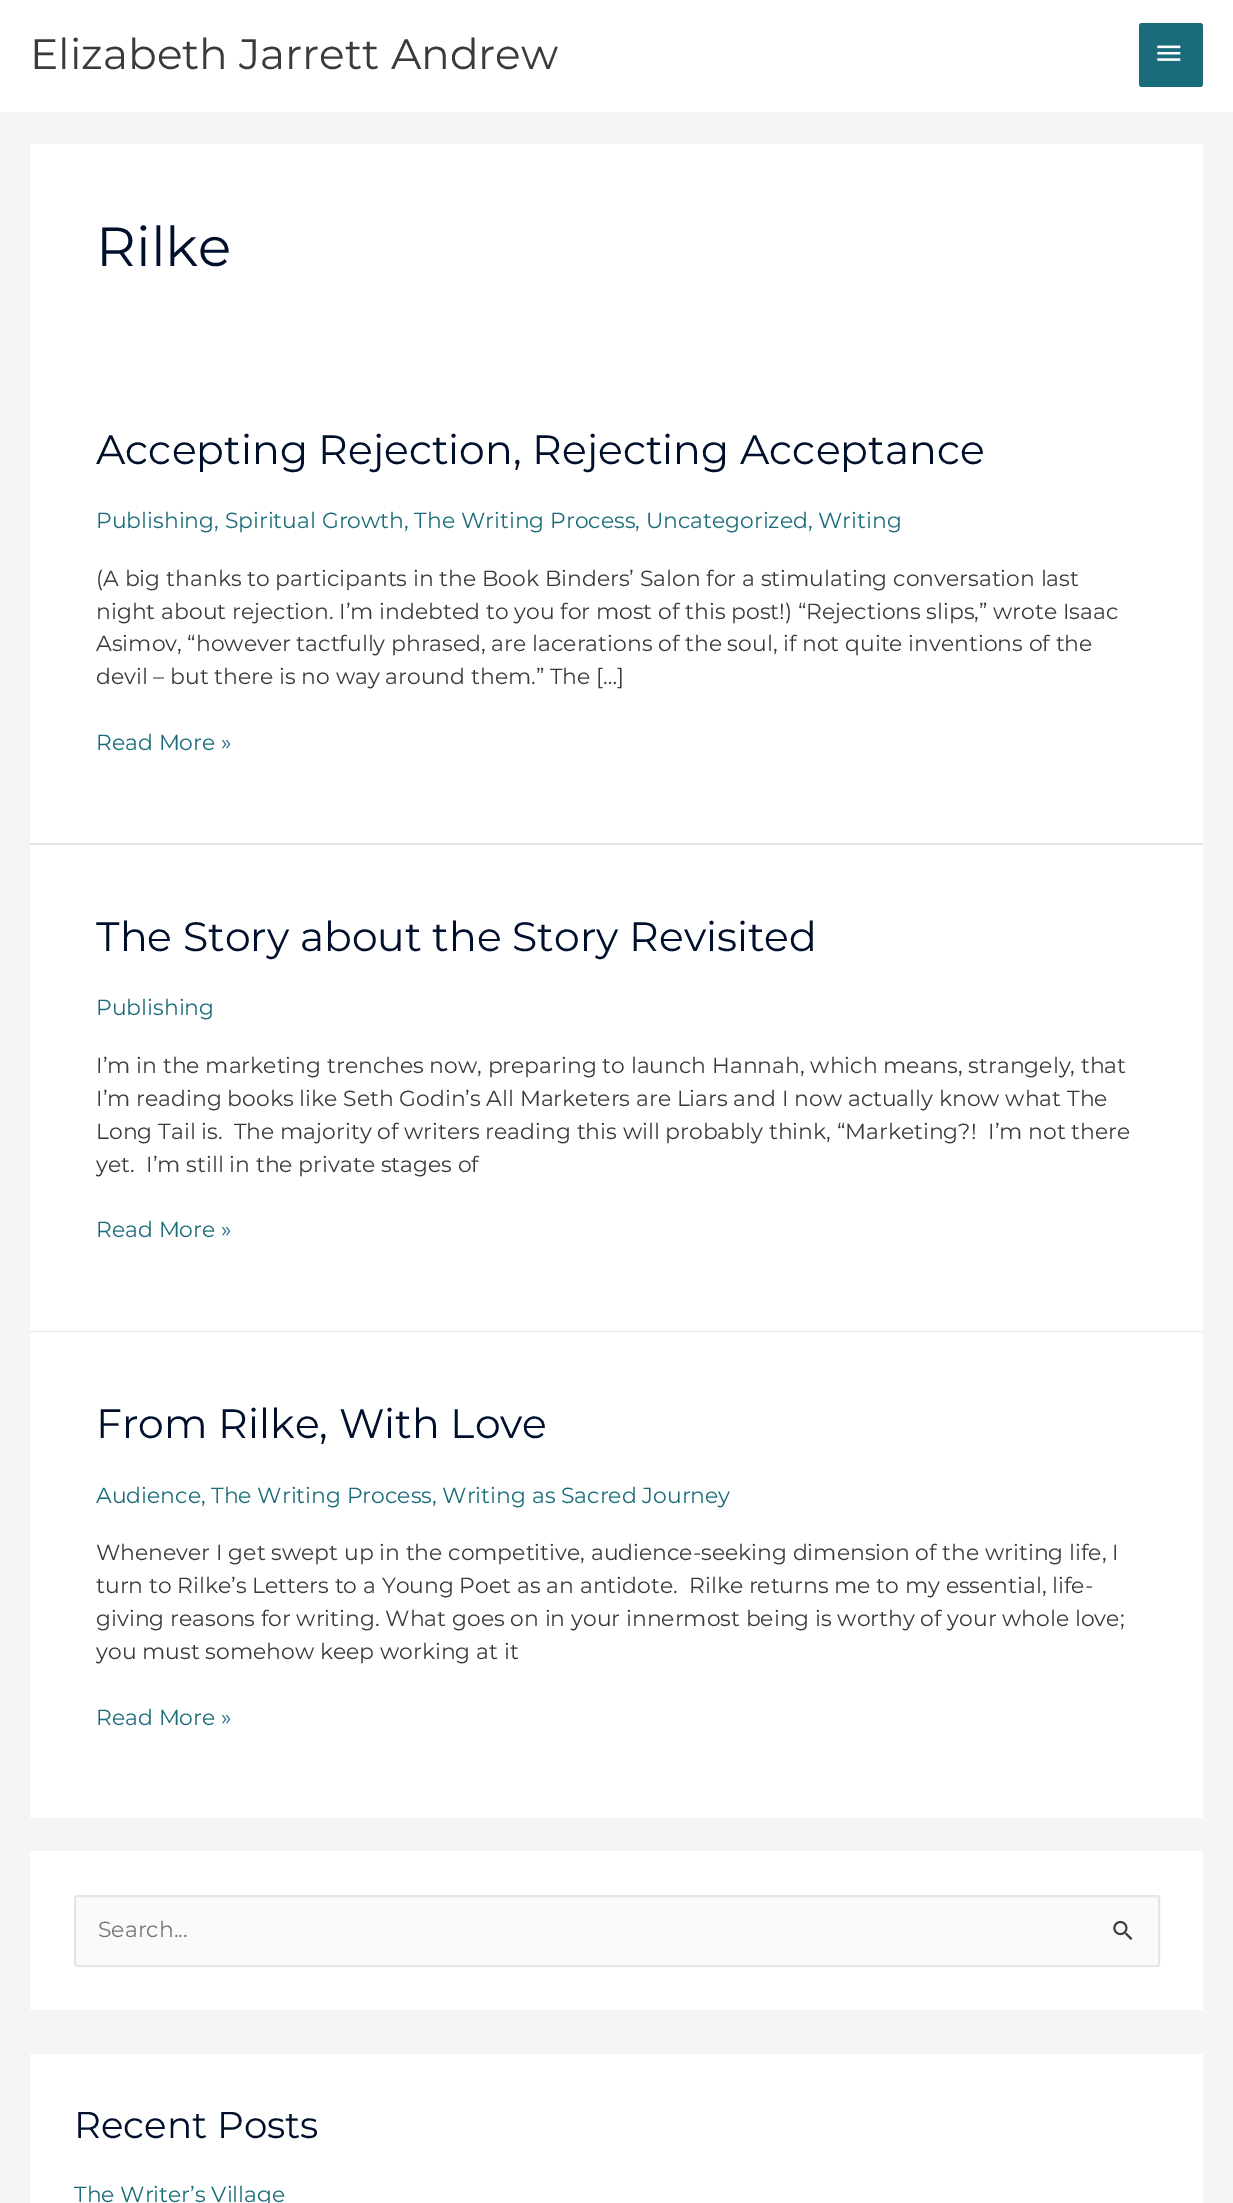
%!PS
<< /PageSize [1233 2203] >> setpagedevice
/roundrect { 5 dict begin { /r /h /w /y /x } { exch def } forall
  x r add y moveto x w add y 2 copy h add r arct x w add y h add x 1 index r arct
  x y h add x y r arct x y 2 copy exch w add exch r arct closepath end } def
/picture { 5 dict begin { /h /w /y /x /name } { exch def } forall
  gsave x y translate w h scale
  w h 8 [w 0 0 h 0 0] name (r) file false 3 colorimage grestore end } def
0 2203 translate 1 -1 scale
4 setmiterlimit
0.961 setgray
0 0 1233 2203 rectfill
1 setgray
0 0 1233 112 rectfill
/Montserrat-Regular [42.4 0 0 -42.4 0 0] selectfont
0.227 setgray
30 69 moveto (Elizabeth Jarrett Andrew) show
0.102 0.424 0.478 setrgbcolor
1139 23 64 64 3 roundrect fill
(img1.rgb) 1157 45 24 16 picture
1 setgray
30 144 1173 699 rectfill
/Montserrat-Regular [55 0 0 -55 0 0] selectfont
0 0.059 0.169 setrgbcolor
96 266 moveto (Rilke) show
0.898 setgray
30 843 1173 2 rectfill
/Montserrat-Regular [41 0 0 -41 0 0] selectfont
0 0.059 0.169 setrgbcolor
96 464 moveto (Accepting Rejection, Rejecting Acceptance) show
/Montserrat-Regular [21.9 0 0 -21.9 0 0] selectfont
0.102 0.424 0.478 setrgbcolor
96 528 moveto (Publishing, Spiritual Growth, The Writing Process, Uncategorized, Writing) show
0.227 setgray
96 586 moveto (\(A big thanks to participants in the Book Binders’ Salon for a stimulating conversation last) show
96 619 moveto (night about rejection. I’m indebted to you for most of this post!\) “Rejections slips,” wrote Isaac) show
96 651 moveto (Asimov, “however tactfully phrased, are lacerations of the soul, if not quite inventions of the) show
96 684 moveto (devil – but there is no way around them.” The […]) show
0.102 0.424 0.478 setrgbcolor
96 750 moveto (Read More ») show
1 setgray
30 845 1173 486 rectfill
0.898 setgray
30 1331 1173 1 rectfill
gsave
96 911 1041 354 rectclip
/Montserrat-Regular [41 0 0 -41 0 0] selectfont
0 0.059 0.169 setrgbcolor
96 951 moveto (The Story about the Story Revisited) show
grestore
0.102 0.424 0.478 setrgbcolor
96 1015 moveto (Publishing) show
0.227 setgray
96 1073 moveto (I’m in the marketing trenches now, preparing to launch Hannah, which means, strangely, that) show
96 1106 moveto (I’m reading books like Seth Godin’s All Marketers are Liars and I now actually know what The) show
96 1139 moveto (Long Tail is.  The majority of writers reading this will probably think, “Marketing?!  I’m not there) show
gsave
96 911 1041 354 rectclip
96 1172 moveto (yet.  I’m still in the private stages of) show
grestore
0.102 0.424 0.478 setrgbcolor
96 1237 moveto (Read More ») show
1 setgray
30 1332 1173 486 rectfill
/Montserrat-Regular [41 0 0 -41 0 0] selectfont
0 0.059 0.169 setrgbcolor
96 1438 moveto (From Rilke, With Love) show
/Montserrat-Regular [21.9 0 0 -21.9 0 0] selectfont
0.102 0.424 0.478 setrgbcolor
96 1503 moveto (Audience, The Writing Process, Writing as Sacred Journey) show
0.227 setgray
96 1560 moveto (Whenever I get swept up in the competitive, audience-seeking dimension of the writing life, I) show
96 1593 moveto (turn to Rilke’s Letters to a Young Poet as an antidote.  Rilke returns me to my essential, life-) show
96 1626 moveto (giving reasons for writing. What goes on in your innermost being is worthy of your whole love;) show
gsave
96 1398 1041 354 rectclip
96 1659 moveto (you must somehow keep working at it) show
grestore
0.102 0.424 0.478 setrgbcolor
96 1725 moveto (Read More ») show
1 setgray
30 1851 1173 159 rectfill
0.98 setgray
75 1896 1084 70 2 roundrect gsave fill grestore
0.898 setgray
2 setlinewidth
stroke
0.459 setgray
98 1937 moveto (Search...) show
(img2.rgb) 1113 1920 20 20 picture
1 setgray
30 2054 1173 149 rectfill
/Montserrat-Regular [37.25 0 0 -37.25 0 0] selectfont
0 0.059 0.169 setrgbcolor
74 2138 moveto (Recent Posts) show
/Montserrat-Regular [21.9 0 0 -21.9 0 0] selectfont
0.102 0.424 0.478 setrgbcolor
74 2202 moveto (The Writer’s Village) show
showpage
